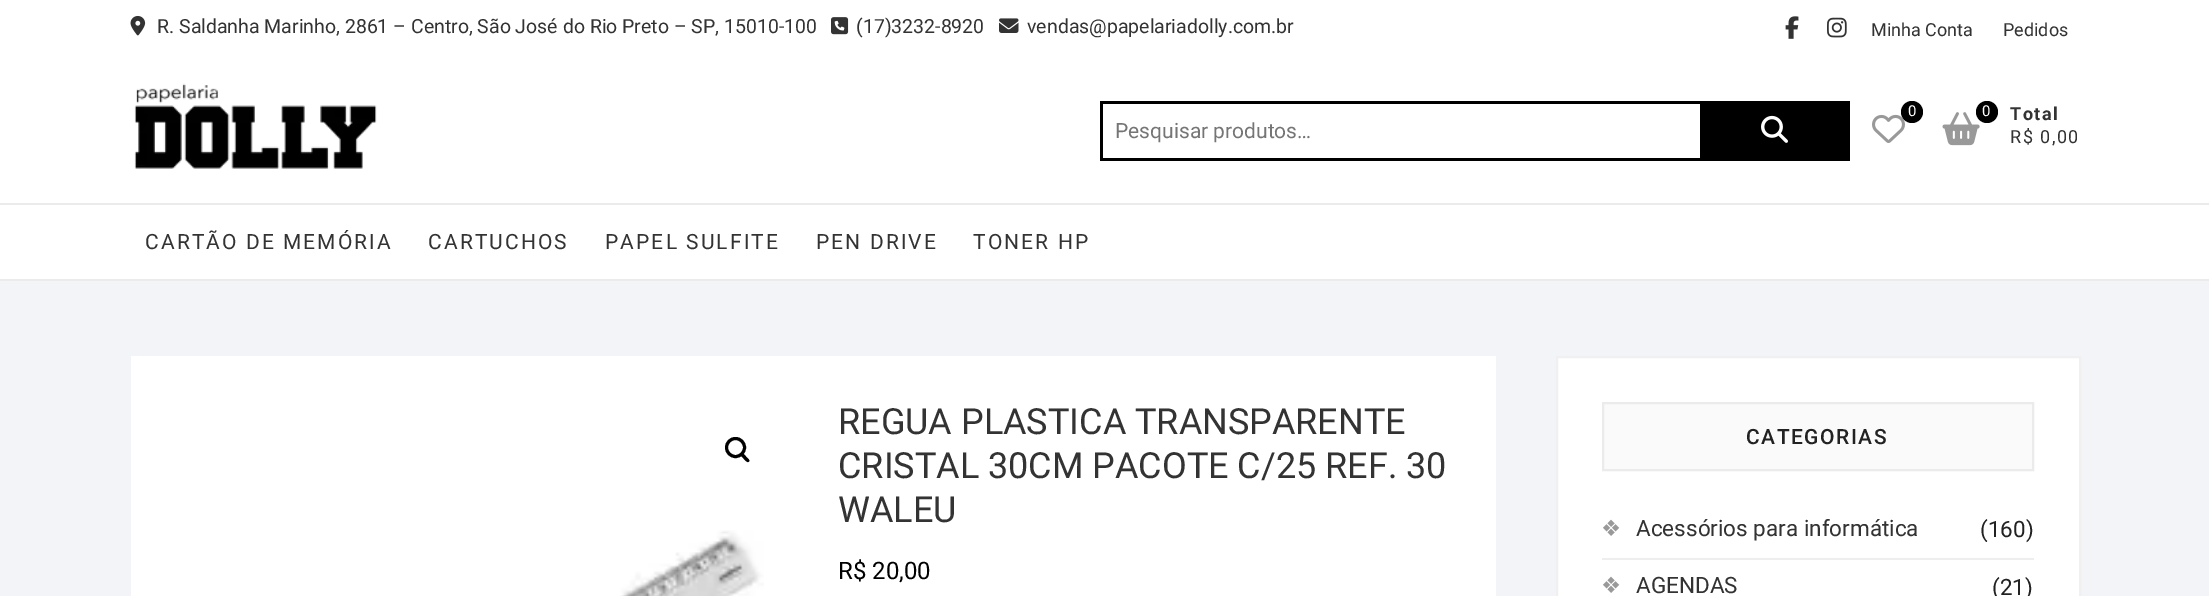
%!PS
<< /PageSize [2209 596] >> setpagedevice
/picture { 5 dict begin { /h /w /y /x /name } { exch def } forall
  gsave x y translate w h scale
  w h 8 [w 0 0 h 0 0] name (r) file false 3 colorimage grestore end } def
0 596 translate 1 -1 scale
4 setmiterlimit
0.953 0.957 0.973 setrgbcolor
0 0 2209 596 rectfill
1 setgray
0 0 2209 279 rectfill
(img1.rgb) 130 15 16 21 picture
/Roboto-Regular [19.5 0 0 -19.5 0 0] selectfont
0.2 setgray
157 33 moveto (R. Saldanha Marinho, 2861 – Centro, São José do Rio Preto – SP, 15010-100) show
(img2.rgb) 831 17 18 18 picture
856 33 moveto (\(17\)3232-8920) show
(img3.rgb) 999 18 20 15 picture
1027 33 moveto (vendas@papelariadolly.com.br) show
(img4.rgb) 1785 16 14 23 picture
(img5.rgb) 1827 17 20 21 picture
/Roboto-Regular [18 0 0 -18 0 0] selectfont
1871 36 moveto (Minha Conta) show
2003 36 moveto (Pedidos) show
(img6.rgb) 134 83 243 86 picture
0 setgray
1100 101 600 3 rectfill
1100 158 600 3 rectfill
1100 101 3 60 rectfill
/Roboto-Regular [21 0 0 -21 0 0] selectfont
0.459 setgray
1115 138 moveto (Pesquisar produtos…) show
0 setgray
1700 101 150 60 rectfill
(img7.rgb) 1761 115 27 28 picture
(img8.rgb) 1872 114 33 29 picture
newpath 1912 112 11 0 360 arc closepath fill
/Roboto-Regular [15 0 0 -15 0 0] selectfont
1 setgray
1908 116 moveto (0) show
(img9.rgb) 1942 112 38 34 picture
0 setgray
newpath 1987 112 11 0 360 arc closepath fill
1 setgray
1982 116 moveto (0) show
/Roboto-Bold [18 0 0 -18 0 0] selectfont
0.2 setgray
2010 120 moveto 1.5 0 (Total) ashow
/Roboto-Regular [18 0 0 -18 0 0] selectfont
2010 143 moveto 1.5 0 (R$ 0,00) ashow
0.922 setgray
0 203 2209 2 rectfill
0 279 2209 2 rectfill
/Roboto-Regular [21 0 0 -21 0 0] selectfont
0.2 setgray
145 249 moveto 2.1 0 (CARTÃO DE MEMÓRIA) ashow
428 249 moveto 2.1 0 (CARTUCHOS) ashow
605 249 moveto 2.1 0 (PAPEL SULFITE) ashow
816 249 moveto 2.1 0 (PEN DRIVE) ashow
973 249 moveto 2.1 0 (TONER HP) ashow
1 setgray
131 356 1365 240 rectfill
0 setgray
3 setlinewidth
newpath 735.5 447.5 9 0 360 arc closepath stroke
newpath 740.5 453.5 moveto 742 451.5 745 455.5 746 456.5 curveto 746.5 457.5 750.5 460 749 461.5 curveto 747.5 463.5 744.5 459.5 743.5 458.5 curveto 743 457.5 739 455 740.5 453.5 curveto closepath fill
(img10.rgb) 620 530 144 66 picture
/Roboto-Regular [36 0 0 -36 0 0] selectfont
0.2 setgray
838 434 moveto (REGUA PLASTICA TRANSPARENTE) show
838 478 moveto (CRISTAL 30CM PACOTE C/25 REF. 30) show
838 522 moveto (WALEU) show
/Roboto-Regular [24 0 0 -24 0 0] selectfont
0 setgray
838 579 moveto (R$ 20,00) show
1 setgray
newpath 1557 357 moveto 2080 357 lineto 2080 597 lineto 1557 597 lineto closepath gsave fill grestore
0.941 setgray
2 setlinewidth
stroke
0.98 setgray
newpath 1603 403 moveto 2033 403 lineto 2033 470 lineto 1603 470 lineto closepath gsave fill grestore
0.922 setgray
stroke
/Roboto-Medium [21 0 0 -21 0 0] selectfont
0.133 setgray
1746 444 moveto 1.5 0 (CATEGORIAS) ashow
0.933 setgray
1602 558 432 2 rectfill
/DejaVuSans-Regular [22.5 0 0 -22.5 0 0] selectfont
0.6 setgray
1601 536 moveto (❖) show
/Roboto-Regular [22.5 0 0 -22.5 0 0] selectfont
0.2 setgray
1636 536 moveto (Acessórios para informática) show
0.133 setgray
1980 537 moveto (\(160\)) show
/DejaVuSans-Regular [22.5 0 0 -22.5 0 0] selectfont
0.6 setgray
1601 593 moveto (❖) show
/Roboto-Regular [22.5 0 0 -22.5 0 0] selectfont
0.2 setgray
1636 593 moveto (AGENDAS) show
0.133 setgray
1992 595 moveto (\(21\)) show
showpage
